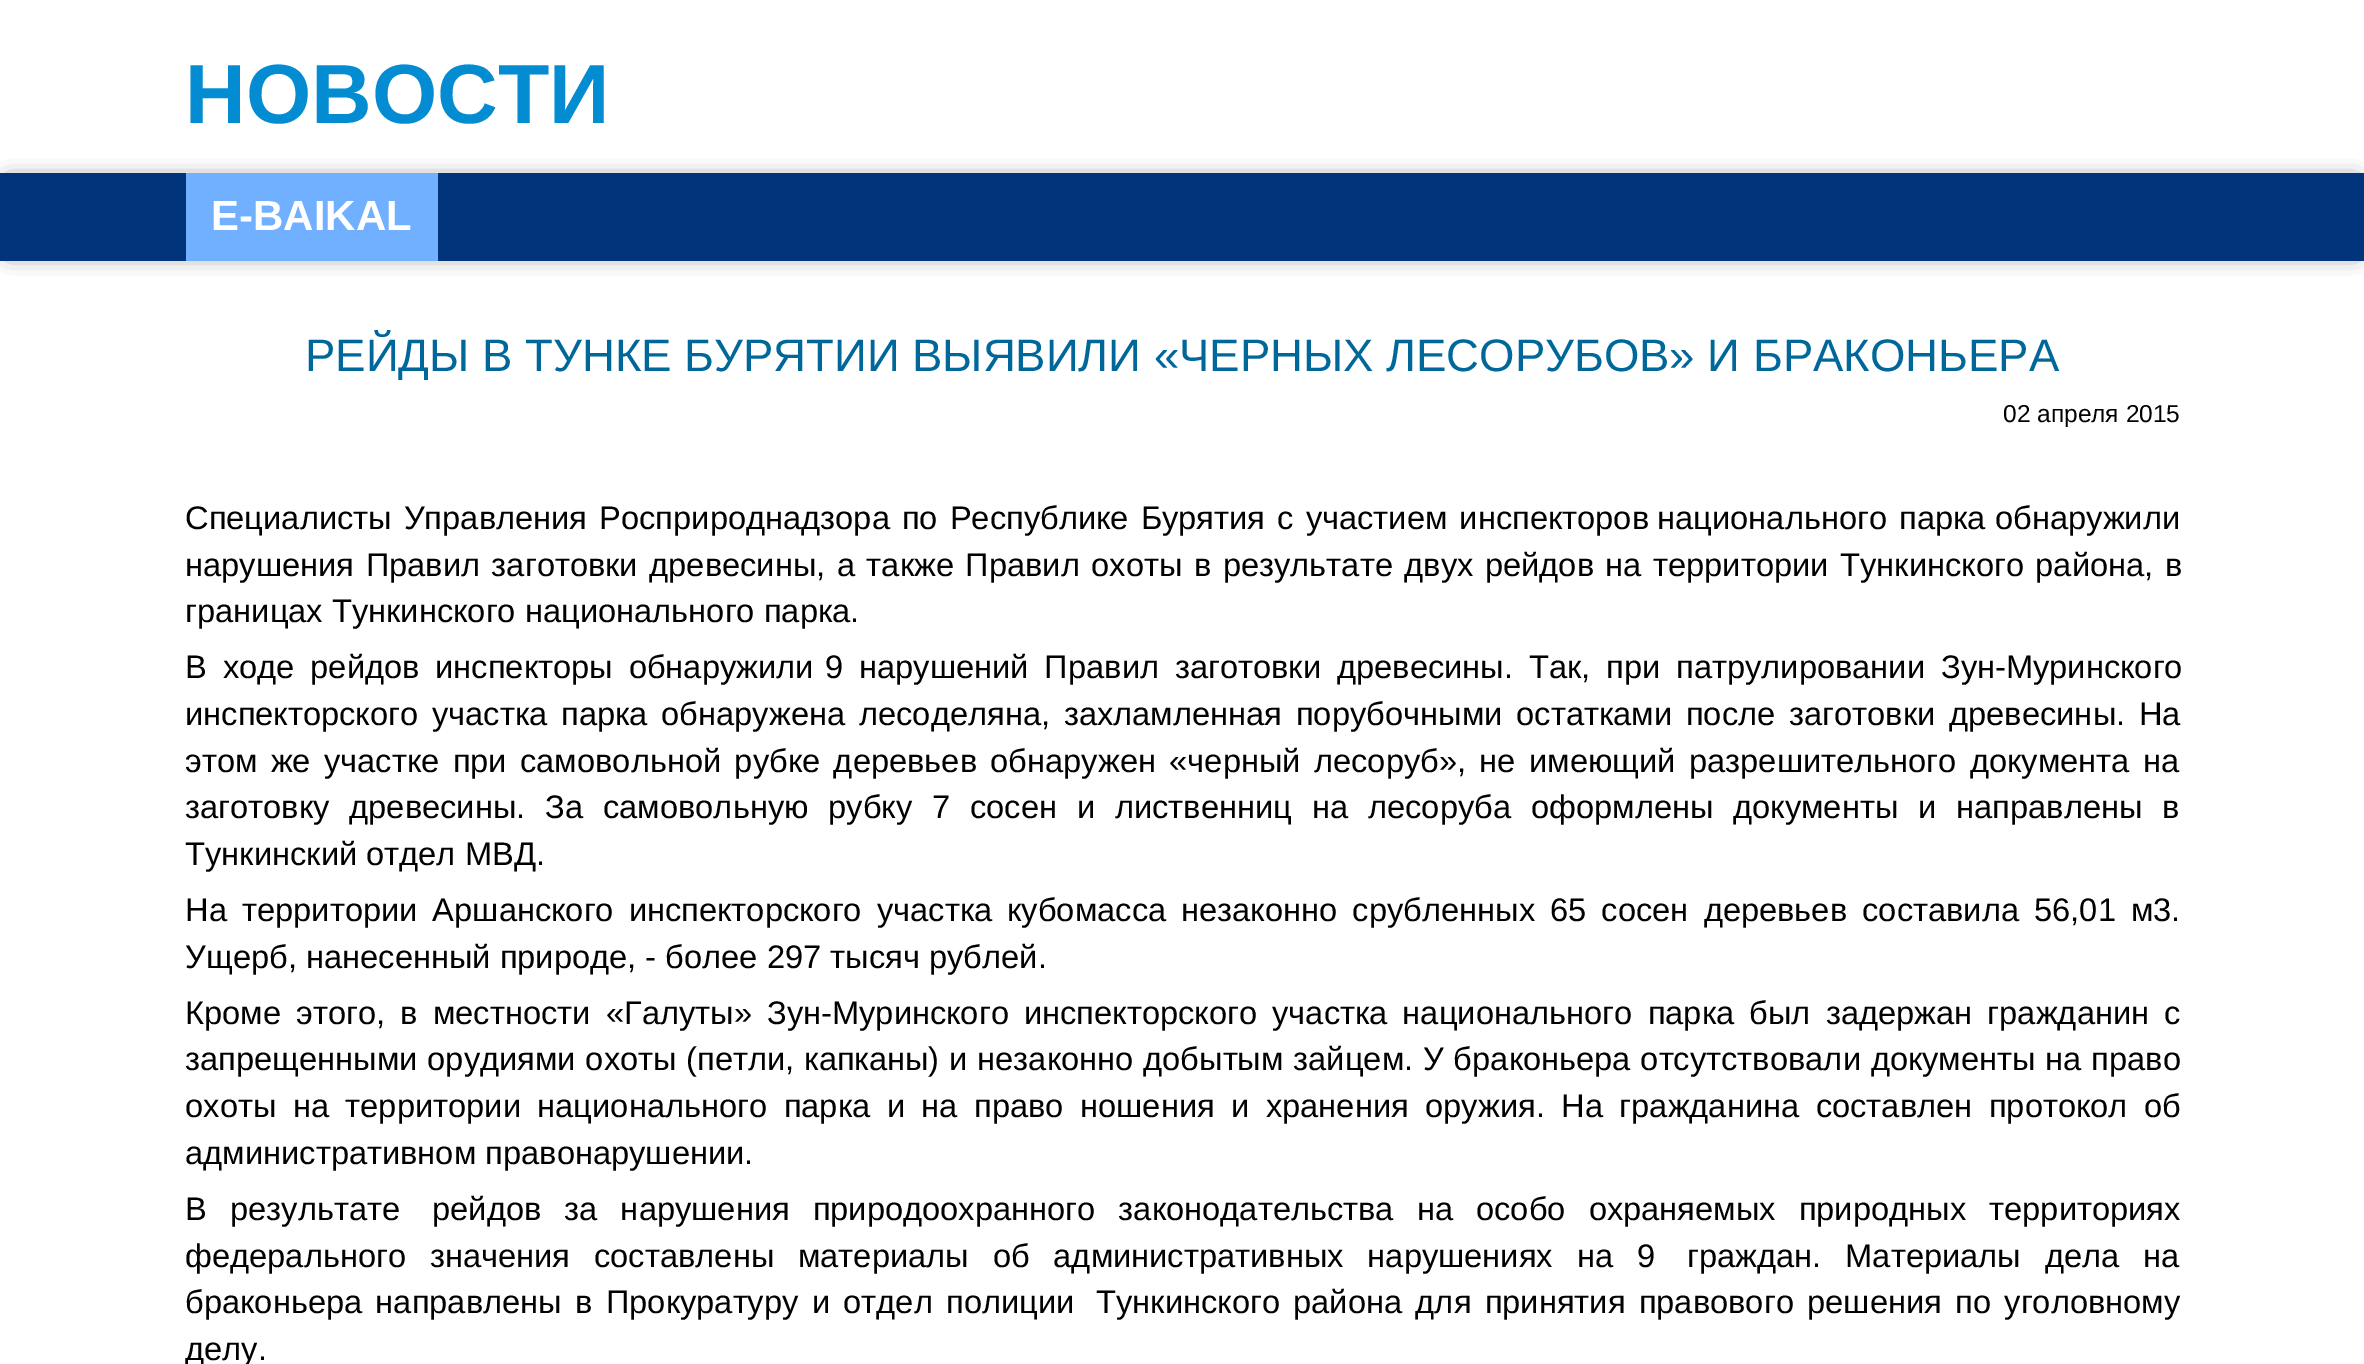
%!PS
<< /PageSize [2364 1364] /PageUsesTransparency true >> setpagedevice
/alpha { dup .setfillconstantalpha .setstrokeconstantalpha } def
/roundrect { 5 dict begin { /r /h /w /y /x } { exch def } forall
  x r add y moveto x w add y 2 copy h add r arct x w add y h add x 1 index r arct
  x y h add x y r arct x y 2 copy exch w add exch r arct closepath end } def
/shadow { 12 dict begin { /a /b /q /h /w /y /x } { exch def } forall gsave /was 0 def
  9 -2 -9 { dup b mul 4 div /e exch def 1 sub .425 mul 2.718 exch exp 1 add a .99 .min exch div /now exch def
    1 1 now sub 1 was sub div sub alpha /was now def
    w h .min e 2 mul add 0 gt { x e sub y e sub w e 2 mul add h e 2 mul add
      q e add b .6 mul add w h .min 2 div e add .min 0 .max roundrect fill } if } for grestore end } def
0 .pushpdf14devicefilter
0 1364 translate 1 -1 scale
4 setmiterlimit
1 setgray
0 0 2364 1364 rectfill
/LiberationSans-Bold [84 0 0 -84 0 0] selectfont
0.012 0.549 0.824 setrgbcolor
185 123 moveto (НОВОСТИ) show
0 setgray
9 182 2347 70 0 10.5 0.75 shadow
0.008 0.204 0.482 setrgbcolor
0 173 2364 88 rectfill
0.443 0.69 1 setrgbcolor
186 173 252 88 rectfill
/LiberationSans-Bold [42 0 0 -42 0 0] selectfont
1 setgray
211 230 moveto (E-BAIKAL) show
/LiberationSans-Regular [45.5 0 0 -45.5 0 0] selectfont
0 0.404 0.608 setrgbcolor
305 371 moveto (РЕЙДЫ В ТУНКЕ БУРЯТИИ ВЫЯВИЛИ «ЧЕРНЫХ ЛЕСОРУБОВ» И БРАКОНЬЕРА) show
/LiberationSans-Regular [24.5 0 0 -24.5 0 0] selectfont
0 setgray
2003 422 moveto (02 апреля 2015) show
/LiberationSans-Regular [32.67 0 0 -32.67 0 0] selectfont
185 529 moveto 3 0 32 (Специалисты Управления Росприроднадзора по Республике Бурятия с участием инспекторов) widthshow
1657 529 moveto 3 0 32 (национального парка) widthshow
1995 529 moveto (обнаружили) show
185 576 moveto 2.4 0 32 (нарушения Правил заготовки древесины, а также Правил охоты в результате двух рейдов на территории Тункинского района, в) widthshow
185 622 moveto (границах Тункинского национального парка.) show
185 678 moveto 6.75 0 32 (В ходе рейдов инспекторы обнаружили) widthshow
825 678 moveto 6.75 0 32 (9 нарушений Правил заготовки древесины. Так, при патрулировании Зун-Муринского) widthshow
185 725 moveto 4.75 0 32 (инспекторского участка парка обнаружена лесоделяна, захламленная порубочными остатками после заготовки древесины. На) widthshow
185 772 moveto 4.25 0 32 (этом же участке при самовольной рубке деревьев обнаружен «черный лесоруб», не имеющий разрешительного документа на) widthshow
185 818 moveto 10.75 0 32 (заготовку древесины. За самовольную рубку 7 сосен и лиственниц на лесоруба оформлены документы и направлены в) widthshow
185 865 moveto (Тункинский отдел МВД.) show
185 921 moveto 6 0 32 (На территории Аршанского инспекторского участка кубомасса незаконно срубленных 65 сосен деревьев составила 56,01 м3.) widthshow
185 968 moveto (Ущерб, нанесенный природе, - более 297 тысяч рублей.) show
185 1024 moveto 6.1 0 32 (Кроме этого, в местности «Галуты» Зун-Муринского инспекторского участка национального парка был задержан гражданин с) widthshow
185 1070 moveto 0.75 0 32 (запрещенными орудиями охоты \(петли, капканы\) и незаконно добытым зайцем. У браконьера отсутствовали документы на право) widthshow
185 1117 moveto 7.4 0 32 (охоты на территории национального парка и на право ношения и хранения оружия. На гражданина составлен протокол об) widthshow
185 1164 moveto (административном правонарушении.) show
185 1220 moveto 14 0 32 (В результате) widthshow
432 1220 moveto 14 0 32 (рейдов за нарушения природоохранного законодательства на особо охраняемых природных территориях) widthshow
185 1267 moveto 14.75 0 32 (федерального значения составлены материалы об административных нарушениях на 9) widthshow
1687 1267 moveto 14.75 0 32 (граждан. Материалы дела на) widthshow
185 1313 moveto 4.25 0 32 (браконьера направлены в Прокуратуру и отдел полиции) widthshow
1096 1313 moveto 4.25 0 32 (Тункинского района для принятия правового решения по уголовному) widthshow
185 1360 moveto (делу.) show
.poppdf14devicefilter showpage
